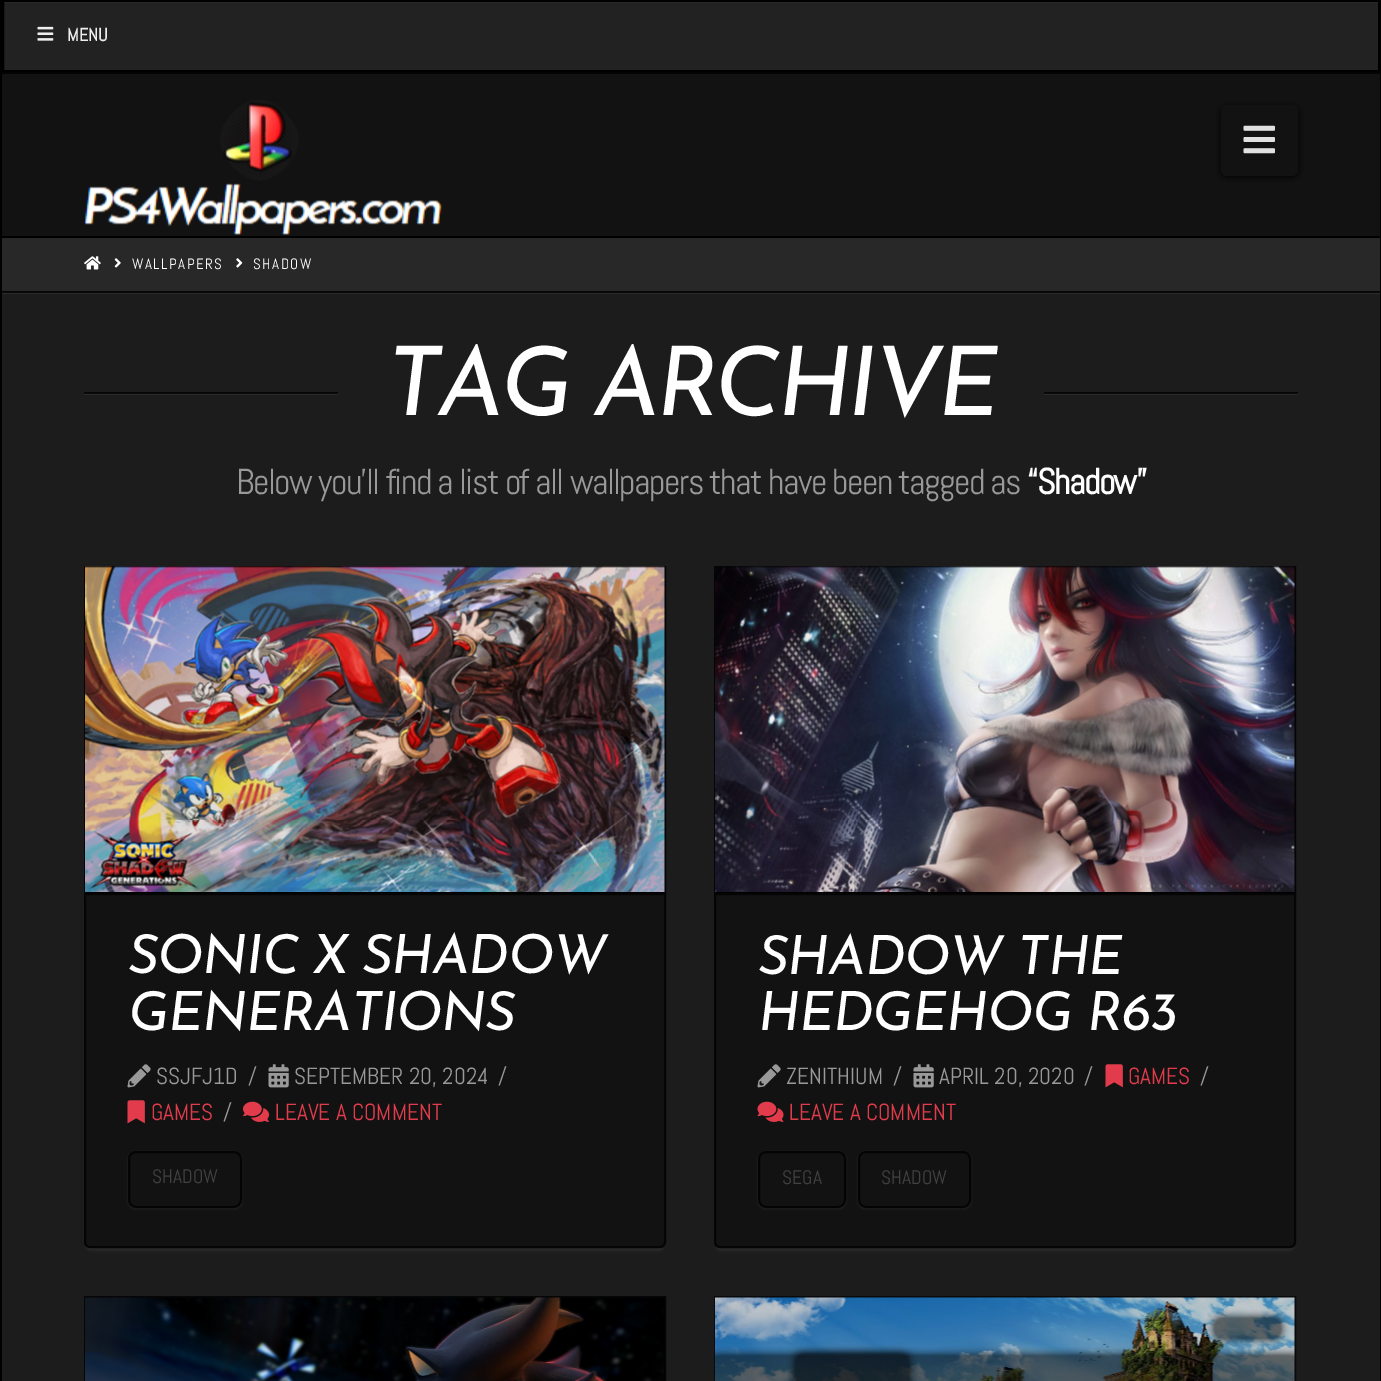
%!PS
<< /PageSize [1381 1381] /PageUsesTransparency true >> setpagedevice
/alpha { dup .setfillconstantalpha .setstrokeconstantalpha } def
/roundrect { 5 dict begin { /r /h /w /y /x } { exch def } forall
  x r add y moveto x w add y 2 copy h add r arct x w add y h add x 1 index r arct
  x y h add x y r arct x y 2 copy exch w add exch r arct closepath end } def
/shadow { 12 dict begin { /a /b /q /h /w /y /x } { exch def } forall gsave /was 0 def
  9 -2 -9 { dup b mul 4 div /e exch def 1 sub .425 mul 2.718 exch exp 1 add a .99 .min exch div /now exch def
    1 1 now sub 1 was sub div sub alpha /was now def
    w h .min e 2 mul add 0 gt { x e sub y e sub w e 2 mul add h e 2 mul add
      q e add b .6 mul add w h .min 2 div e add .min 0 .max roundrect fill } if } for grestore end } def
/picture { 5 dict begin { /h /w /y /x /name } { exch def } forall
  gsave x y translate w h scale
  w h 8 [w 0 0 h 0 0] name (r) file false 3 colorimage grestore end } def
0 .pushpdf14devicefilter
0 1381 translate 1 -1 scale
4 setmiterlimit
0.11 setgray
0 0 1381 1381 rectfill
0.004 setgray
1380 0 1 1381 rectfill
0 0 2 1381 rectfill
0.02 setgray
2 72 1378 2 rectfill
0.133 setgray
4 3 1374 67 rectfill
gsave
3 2 1376 69 rectclip
0.22 setgray
newpath -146 -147 moveto 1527 -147 lineto 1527 219 lineto -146 219 lineto closepath 4 3 moveto 1380 3 lineto 1380 72 lineto 4 72 lineto closepath eofill
grestore
0 setgray
2 setlinewidth
3 1 1376 70 rectstroke
(img1.rgb) 37 26 17 15 picture
/Abel-Bold [18 0 0 -18 0 0] selectfont
0.933 setgray
67 41 moveto (MENU) show
0.071 setgray
2 74 1378 162 rectfill
0 setgray
2 236 1378 2 rectfill
(img2.rgb) 84 99 358 136 picture
1221 107 77 70 6 3 1 shadow
0.071 setgray
1221 105 77 71 6 roundrect fill
(img3.rgb) 1243 125 32 29 picture
0.169 setgray
2 292 1378 2 rectfill
0.05 alpha
1 setgray
2 238 1378 55 rectfill
0.82 alpha
0 setgray
2 291 1378 2 rectfill
1 alpha
(img4.rgb) 84 256 17 14 picture
(img5.rgb) 114 258 7 10 picture
/Abel-Regular [15 0 0 -15 0 0] selectfont
1 setgray
132 269 moveto 1.5 0 (WALLPAPERS) ashow
(img6.rgb) 236 258 7 10 picture
253 269 moveto 1.5 0 (SHADOW) ashow
0.165 setgray
84 393 254 2 rectfill
0.75 alpha
0 setgray
84 392 254 2 rectfill
gsave
84 344 1214 108 rectclip
/JosefinSans-Italic [96 0 0 -96 0 0] selectfont
1 alpha
1 setgray
386 415 moveto -4.5 0 (TAG ARCHIVE) ashow
grestore
1 alpha
0.165 setgray
1044 393 254 2 rectfill
0.75 alpha
0 setgray
1044 392 254 2 rectfill
/Abel-Regular [36 0 0 -36 0 0] selectfont
1 alpha
0.6 setgray
236 494 moveto -1.5 0 (Below you'll find a list of all wallpapers that have been tagged as) ashow
/Abel-Bold [36 0 0 -36 0 0] selectfont
1 setgray
1027 494 moveto -1.5 0 (“Shadow”) ashow
87 900 576 350 3 1.5 0.07 shadow
0.071 setgray
newpath 85 894 moveto 665 894 lineto 665 1242 lineto 665 1245 663 1247 660 1247 curveto 90 1247 lineto 87 1247 85 1245 85 1242 curveto closepath gsave fill grestore
0.02 setgray
stroke
85 567 580 326 rectstroke
0 setgray
86 567 579 326 rectfill
(img7.rgb) 85 566 580 326 picture
/JosefinSans-Italic [54 0 0 -54 0 0] selectfont
1 setgray
128 973 moveto -1.25 0 (SONIC X SHADOW) ashow
128 1030 moveto -1.25 0 (GENERATIONS) ashow
(img8.rgb) 127 1064 24 24 picture
/Abel-Regular [23.25 0 0 -23.25 0 0] selectfont
0.6 setgray
156 1084 moveto (SSJFJ1D) show
248 1084 moveto (/) show
(img9.rgb) 268 1064 21 24 picture
294 1084 moveto (SEPTEMBER 20, 2024) show
498 1084 moveto (/) show
(img10.rgb) 127 1100 18 24 picture
0.886 0.235 0.298 setrgbcolor
151 1120 moveto (GAMES) show
0.6 setgray
223 1120 moveto (/) show
(img11.rgb) 243 1101 26 21 picture
0.886 0.235 0.298 setrgbcolor
275 1120 moveto (LEAVE A COMMENT) show
gsave
newpath 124 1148 moveto 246 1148 lineto 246 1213 lineto 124 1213 lineto closepath 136 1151 moveto 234 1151 lineto 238.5 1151 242 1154.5 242 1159 curveto 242 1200 lineto 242 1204.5 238.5 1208 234 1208 curveto 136 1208 lineto 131.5 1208 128 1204.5 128 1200 curveto 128 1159 lineto 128 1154.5 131.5 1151 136 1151 curveto closepath eoclip newpath
1 setgray
128 1152 114 57 8 1 0.07 shadow
grestore
0.78 alpha
0 setgray
129 1152 112 55 7 roundrect stroke
/Abel-Regular [19.5 0 0 -19.5 0 0] selectfont
1 alpha
0.255 setgray
152 1183 moveto (SHADOW) show
1 setgray
717 900 576 350 3 1.5 0.07 shadow
0.071 setgray
newpath 715 894 moveto 1295 894 lineto 1295 1242 lineto 1295 1245 1293 1247 1290 1247 curveto 720 1247 lineto 717 1247 715 1245 715 1242 curveto closepath gsave fill grestore
0.02 setgray
stroke
715 567 580 326 rectstroke
0 setgray
716 567 579 326 rectfill
(img12.rgb) 715 566 580 326 picture
/JosefinSans-Italic [54 0 0 -54 0 0] selectfont
1 setgray
758 974 moveto -1.25 0 (SHADOW THE) ashow
758 1030 moveto -1.25 0 (HEDGEHOG R63) ashow
(img8.rgb) 757 1064 24 24 picture
/Abel-Regular [23.25 0 0 -23.25 0 0] selectfont
0.6 setgray
786 1084 moveto (ZENITHIUM) show
893 1084 moveto (/) show
(img9.rgb) 913 1064 21 24 picture
939 1084 moveto (APRIL 20, 2020) show
1084 1084 moveto (/) show
(img10.rgb) 1105 1064 18 24 picture
0.886 0.235 0.298 setrgbcolor
1128 1084 moveto (GAMES) show
0.6 setgray
1200 1084 moveto (/) show
(img13.rgb) 757 1101 27 21 picture
0.886 0.235 0.298 setrgbcolor
789 1120 moveto (LEAVE A COMMENT) show
gsave
newpath 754 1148 moveto 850 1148 lineto 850 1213 lineto 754 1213 lineto closepath 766 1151 moveto 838 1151 lineto 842.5 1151 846 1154.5 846 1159 curveto 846 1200 lineto 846 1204.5 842.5 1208 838 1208 curveto 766 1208 lineto 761.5 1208 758 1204.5 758 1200 curveto 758 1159 lineto 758 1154.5 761.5 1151 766 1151 curveto closepath eoclip newpath
1 setgray
758 1152 88 57 8 1 0.07 shadow
grestore
0.78 alpha
0 setgray
759 1152 86 55 7 roundrect stroke
/Abel-Regular [19.5 0 0 -19.5 0 0] selectfont
1 alpha
0.255 setgray
782 1184 moveto (SEGA) show
gsave
newpath 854 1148 moveto 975 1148 lineto 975 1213 lineto 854 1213 lineto closepath 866 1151 moveto 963 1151 lineto 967.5 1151 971 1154.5 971 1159 curveto 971 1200 lineto 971 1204.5 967.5 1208 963 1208 curveto 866 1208 lineto 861.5 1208 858 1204.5 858 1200 curveto 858 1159 lineto 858 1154.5 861.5 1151 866 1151 curveto closepath eoclip newpath
1 setgray
858 1152 113 57 8 1 0.07 shadow
grestore
0.78 alpha
0 setgray
859 1152 111 55 7 roundrect stroke
1 alpha
0.255 setgray
881 1184 moveto (SHADOW) show
0.024 setgray
85 1297 580 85 rectstroke
0.004 setgray
86 1298 579 83 rectfill
(img14.rgb) 85 1297 579 84 picture
0.039 setgray
715 1297 580 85 rectstroke
0.024 setgray
716 1298 579 83 rectfill
(img15.rgb) 715 1297 580 84 picture
.poppdf14devicefilter showpage
